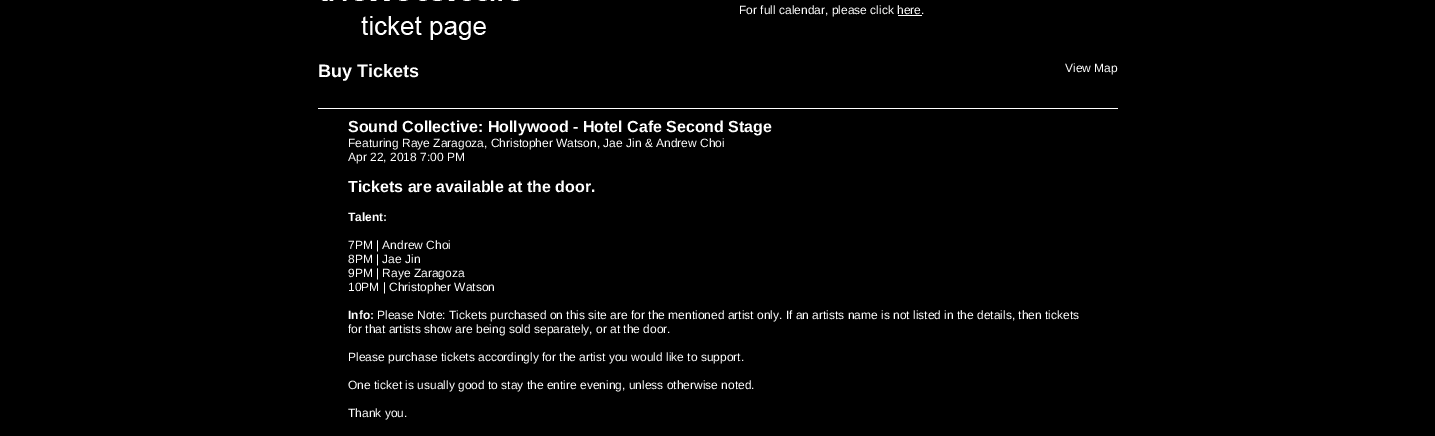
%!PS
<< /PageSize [1435 436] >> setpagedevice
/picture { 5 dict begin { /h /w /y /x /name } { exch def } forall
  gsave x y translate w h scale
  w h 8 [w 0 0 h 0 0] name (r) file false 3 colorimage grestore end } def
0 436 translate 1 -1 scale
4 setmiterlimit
0 setgray
0 0 1435 436 rectfill
1 setgray
318 108 800 1 rectfill
(img1.rgb) 321 0 199 40 picture
/LiberationSans-Regular [12 0 0 -12 0 0] selectfont
739 14 moveto (For full calendar, please click here.) show
898 15 24 1 rectfill
/LiberationSans-Bold [18 0 0 -18 0 0] selectfont
318 77 moveto (Buy Tickets) show
/LiberationSans-Regular [12 0 0 -12 0 0] selectfont
1065 72 moveto (View Map) show
/LiberationSans-Bold [16 0 0 -16 0 0] selectfont
348 132 moveto (Sound Collective: Hollywood - Hotel Cafe Second Stage) show
/LiberationSans-Regular [12 0 0 -12 0 0] selectfont
348 147 moveto (Featuring Raye Zaragoza, Christopher Watson, Jae Jin & Andrew Choi) show
348 161 moveto (Apr 22, 2018 7:00 PM) show
/LiberationSans-Bold [16 0 0 -16 0 0] selectfont
348 192 moveto (Tickets are available at the door.) show
/LiberationSans-Bold [12 0 0 -12 0 0] selectfont
348 221 moveto (Talent:) show
/LiberationSans-Regular [12 0 0 -12 0 0] selectfont
348 249 moveto (7PM | Andrew Choi) show
348 263 moveto (8PM | Jae Jin) show
348 277 moveto (9PM | Raye Zaragoza) show
348 291 moveto (10PM | Christopher Watson) show
/LiberationSans-Bold [12 0 0 -12 0 0] selectfont
348 319 moveto (Info:) show
/LiberationSans-Regular [12 0 0 -12 0 0] selectfont
377 319 moveto (Please Note: Tickets purchased on this site are for the mentioned artist only. If an artists name is not listed in the details, then tickets) show
348 333 moveto (for that artists show are being sold separately, or at the door.) show
348 361 moveto (Please purchase tickets accordingly for the artist you would like to support.) show
348 389 moveto (One ticket is usually good to stay the entire evening, unless otherwise noted.) show
348 417 moveto (Thank you.) show
showpage
